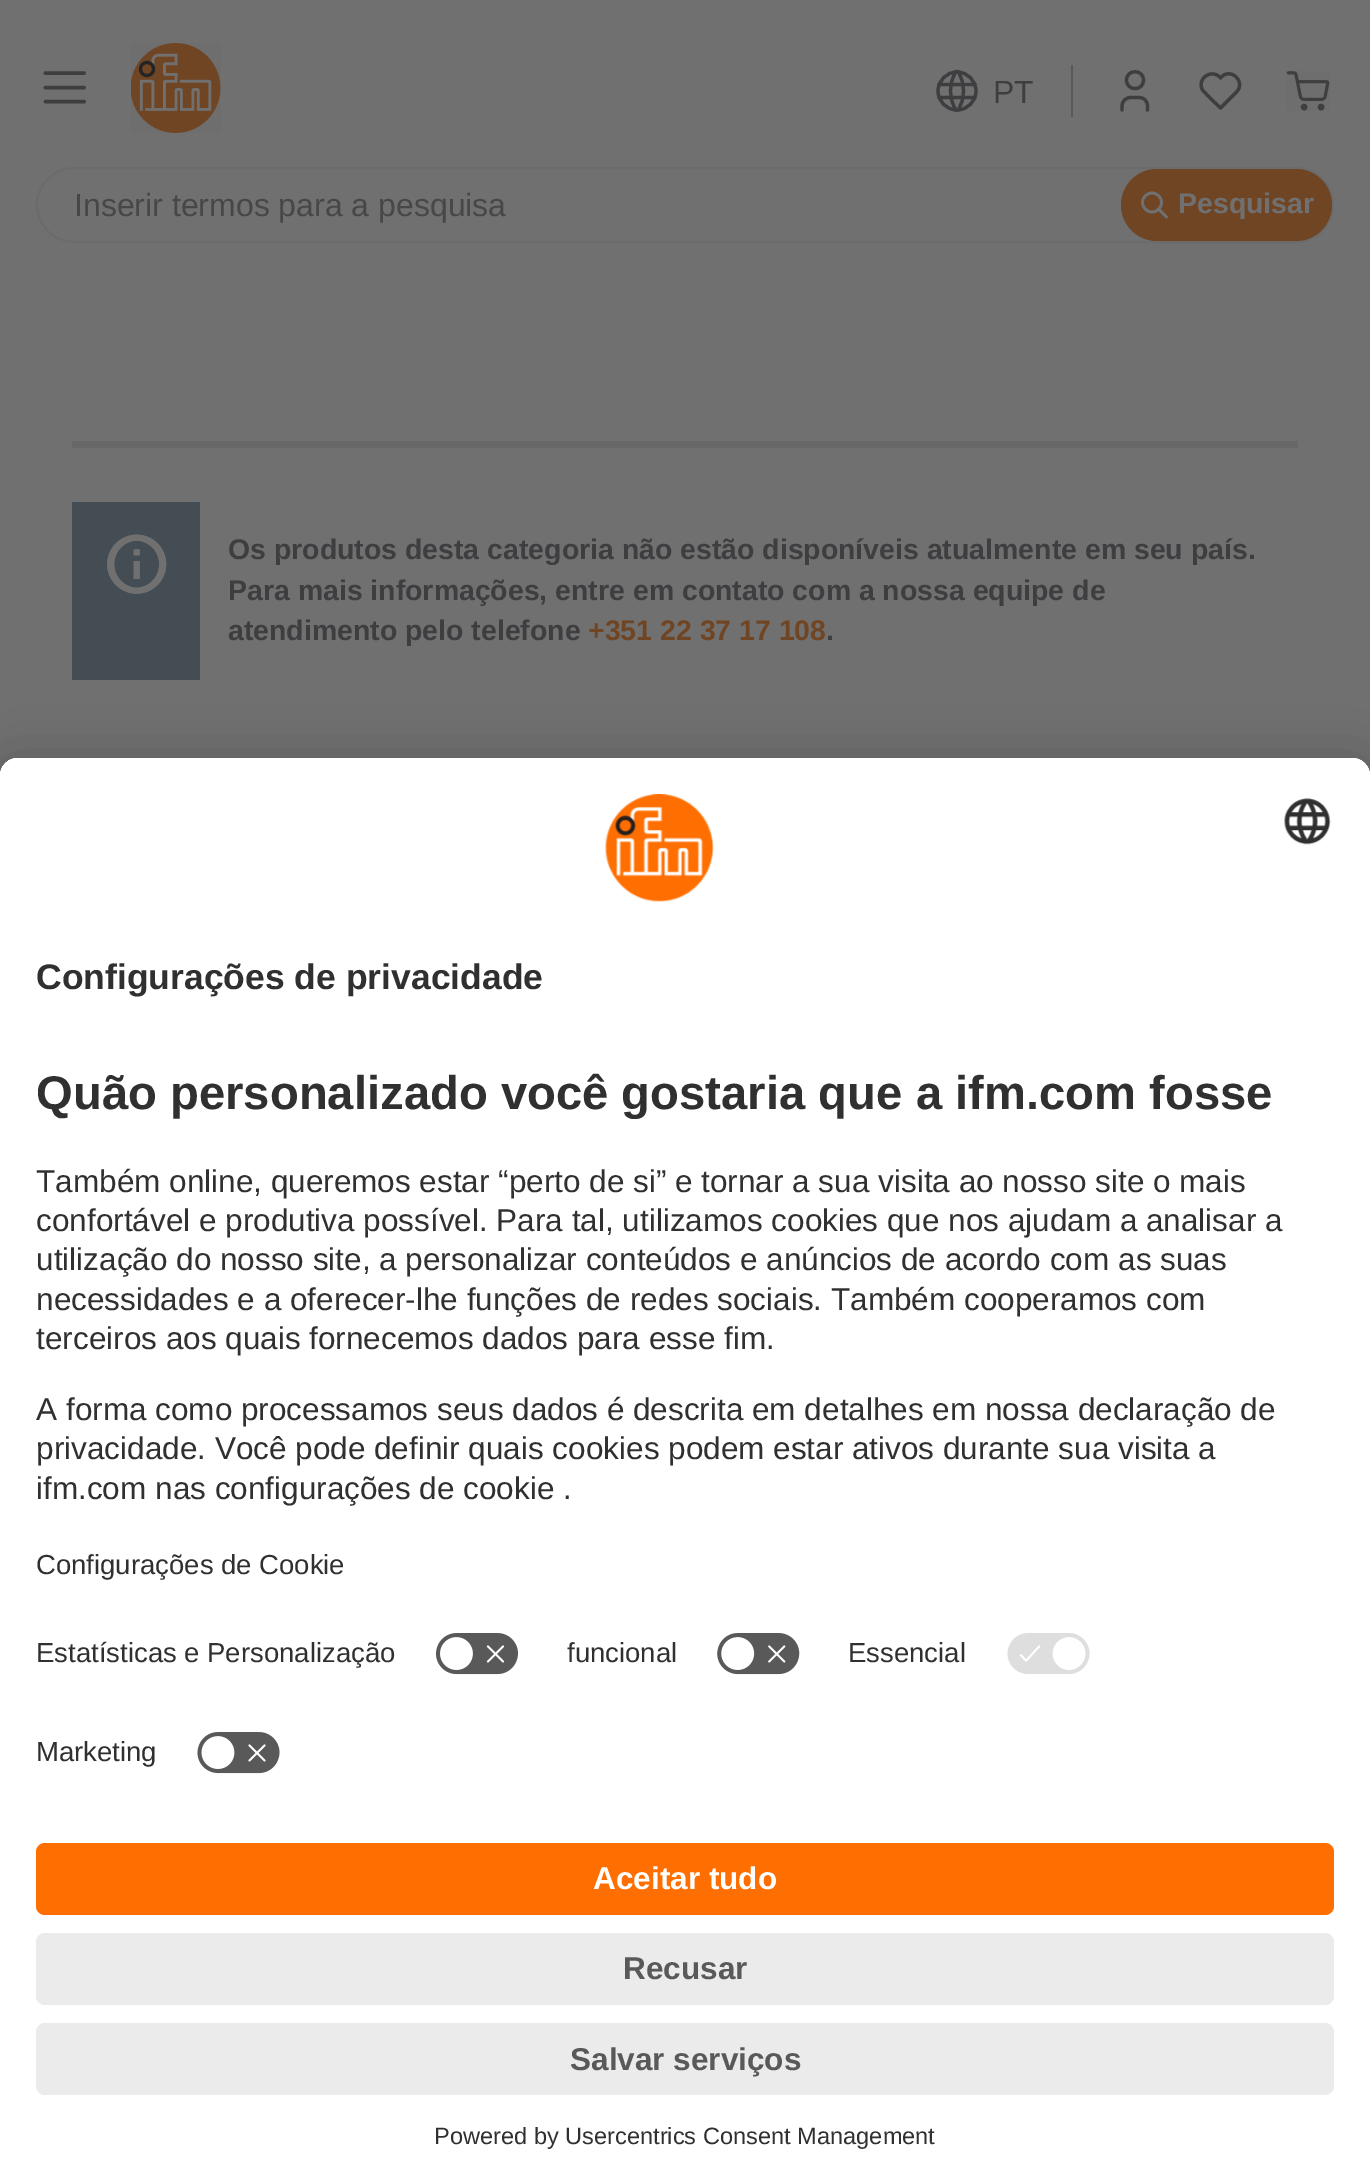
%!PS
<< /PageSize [1370 2183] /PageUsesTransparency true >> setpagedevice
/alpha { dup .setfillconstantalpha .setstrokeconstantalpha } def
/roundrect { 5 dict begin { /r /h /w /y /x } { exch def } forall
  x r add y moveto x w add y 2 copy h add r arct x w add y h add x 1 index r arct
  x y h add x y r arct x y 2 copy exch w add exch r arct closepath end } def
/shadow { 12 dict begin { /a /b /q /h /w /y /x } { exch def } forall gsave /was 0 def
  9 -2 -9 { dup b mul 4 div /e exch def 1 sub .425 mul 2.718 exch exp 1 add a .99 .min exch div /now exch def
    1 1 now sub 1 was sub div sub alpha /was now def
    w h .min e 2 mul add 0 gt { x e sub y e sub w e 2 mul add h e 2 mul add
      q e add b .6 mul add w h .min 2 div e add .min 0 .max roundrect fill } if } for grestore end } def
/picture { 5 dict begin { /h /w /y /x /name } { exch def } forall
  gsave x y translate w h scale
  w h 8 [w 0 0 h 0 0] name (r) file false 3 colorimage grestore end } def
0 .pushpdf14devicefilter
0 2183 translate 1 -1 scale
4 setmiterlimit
0.439 setgray
0 0 1370 2183 rectfill
0.243 0.243 0.255 setrgbcolor
3.6 setlinewidth
1 setlinecap
1 setlinejoin
newpath 45.5 73 moveto 84 73 lineto 45.5 87.5 moveto 84 87.5 lineto 45.5 101.5 moveto 84 101.5 lineto stroke
(img1.rgb) 131 43 90 90 picture
0.345 0.349 0.353 setrgbcolor
1071 65 2 52 rectfill
0.243 0.243 0.255 setrgbcolor
3.2 setlinewidth
0 setlinecap
0 setlinejoin
newpath 957 91 19 0 360 arc closepath stroke
1 setlinecap
1 setlinejoin
newpath 939 84.5 moveto 975 84.5 lineto 939 97.5 moveto 975 97.5 lineto 956 71.5 moveto 948.5 83.5 948.5 98.5 956 110 curveto 958 71.5 moveto 965.5 83.5 965.5 98.5 958 110 curveto stroke
/LiberationSans-Regular [32 0 0 -32 0 0] selectfont
993 103 moveto (PT) show
newpath 1126.5 80 moveto 1126.5 91.5 1143.5 91.5 1143.5 80 curveto 1143.5 69 1126.5 69 1126.5 80 curveto 1122 110 moveto 1122 106 lineto 1122 101 1126 97.5 1130.5 97.5 curveto 1139 97.5 lineto 1144 97.5 1147.5 101 1147.5 106 curveto 1147.5 110 lineto stroke
newpath 1236.5 92 moveto 1220.5 108 lineto 1209.5 97.5 lineto 1207.5 95 1204.5 92.5 1202.5 90 curveto 1196 78.5 1212.5 67.5 1220.5 78 curveto 1229.5 66 1247 81.5 1236.5 92 curveto stroke
(img2.rgb) 1286 71 44 40 picture
0.42 setgray
2 setlinewidth
0 setlinecap
0 setlinejoin
37 168 1296 74 37 roundrect stroke
0.278 setgray
74 216 moveto (Inserir termos para a pesquisa) show
0.439 0.271 0.141 setrgbcolor
1121 169 211 72 36 roundrect fill
0.439 setgray
2.7 setlinewidth
newpath 1152 202.5 9.5 0 360 arc closepath stroke
1 setlinecap
1 setlinejoin
newpath 1166.5 217 moveto 1158.5 209 lineto stroke
/LiberationSans-Bold [28.45 0 0 -28.45 0 0] selectfont
1178 213 moveto (Pesquisar) show
0.408 0.408 0.412 setrgbcolor
72 441 1226 7 rectfill
0.271 0.302 0.329 setrgbcolor
72 502 128 178 rectfill
(img3.rgb) 107 534 60 60 picture
0.243 0.243 0.255 setrgbcolor
228 559 moveto (Os produtos desta categoria não estão disponíveis atualmente em seu país.) show
228 600 moveto (Para mais informações, entre em contato com a nossa equipe de) show
228 640 moveto (atendimento pelo telefone) show
0.439 0.271 0.141 setrgbcolor
588 640 moveto (+351 22 37 17 108) show
0.243 0.243 0.255 setrgbcolor
826 640 moveto (.) show
0 setgray
0 803 1370 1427 18 31.5 0.3 shadow
0 770 1370 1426 18 29 0.22 shadow
1 setgray
newpath 18 758 moveto 1352 758 lineto 1362 758 1370 766 1370 776 curveto 1370 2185 lineto 0 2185 lineto 0 776 lineto 0 766 8 758 18 758 curveto closepath fill
newpath 18 758 moveto 1352 758 lineto 1362 758 1370 766 1370 776 curveto 1370 1816 lineto 0 1816 lineto 0 776 lineto 0 766 8 758 18 758 curveto closepath fill
newpath 18 758 moveto 1352 758 lineto 1362 758 1370 766 1370 776 curveto 1370 1618 lineto 0 1618 lineto 0 776 lineto 0 766 8 758 18 758 curveto closepath fill
(img4.rgb) 604 794 110 108 picture
(img5.rgb) 1284 798 47 47 picture
/LiberationSans-Bold [35.5 0 0 -35.5 0 0] selectfont
0.188 setgray
36 989 moveto (Configurações de privacidade) show
/LiberationSans-Bold [47.25 0 0 -47.25 0 0] selectfont
36 1109 moveto (Quão personalizado você gostaria que a ifm.com fosse) show
/LiberationSans-Regular [31.5 0 0 -31.5 0 0] selectfont
36 1192 moveto (Também online, queremos estar “perto de si” e tornar a sua visita ao nosso site o mais) show
36 1231 moveto (confortável e produtiva possível. Para tal, utilizamos cookies que nos ajudam a analisar a) show
36 1270 moveto (utilização do nosso site, a personalizar conteúdos e anúncios de acordo com as suas) show
36 1310 moveto (necessidades e a oferecer-lhe funções de redes sociais. Também cooperamos com) show
36 1349 moveto (terceiros aos quais fornecemos dados para esse fim.) show
36 1420 moveto (A forma como processamos seus dados é descrita em detalhes em nossa declaração de) show
36 1459 moveto (privacidade. Você pode definir quais cookies podem estar ativos durante sua visita a) show
36 1499 moveto (ifm.com nas configurações de cookie .) show
/LiberationSans-Regular [27.5 0 0 -27.5 0 0] selectfont
36 1574 moveto (Configurações de Cookie) show
36 1662 moveto (Estatísticas e Personalização) show
(img6.rgb) 435 1633 83 42 picture
567 1662 moveto (funcional) show
(img7.rgb) 717 1633 83 42 picture
848 1662 moveto (Essencial) show
(img8.rgb) 1007 1633 83 41 picture
36 1761 moveto (Marketing) show
(img9.rgb) 197 1732 83 42 picture
1 0.431 0 setrgbcolor
36 1843 1298 72 9 roundrect fill
/LiberationSans-Bold [31.5 0 0 -31.5 0 0] selectfont
1 setgray
593 1889 moveto (Aceitar tudo) show
0.922 setgray
36 1933 1298 72 9 roundrect fill
0.349 0.349 0.353 setrgbcolor
623 1979 moveto (Recusar) show
0.922 setgray
36 2023 1298 72 9 roundrect fill
0.349 0.349 0.353 setrgbcolor
570 2070 moveto (Salvar serviços) show
/LiberationSans-Regular [23.6 0 0 -23.6 0 0] selectfont
0.188 setgray
434 2144 moveto (Powered by Usercentrics Consent Management) show
.poppdf14devicefilter showpage
